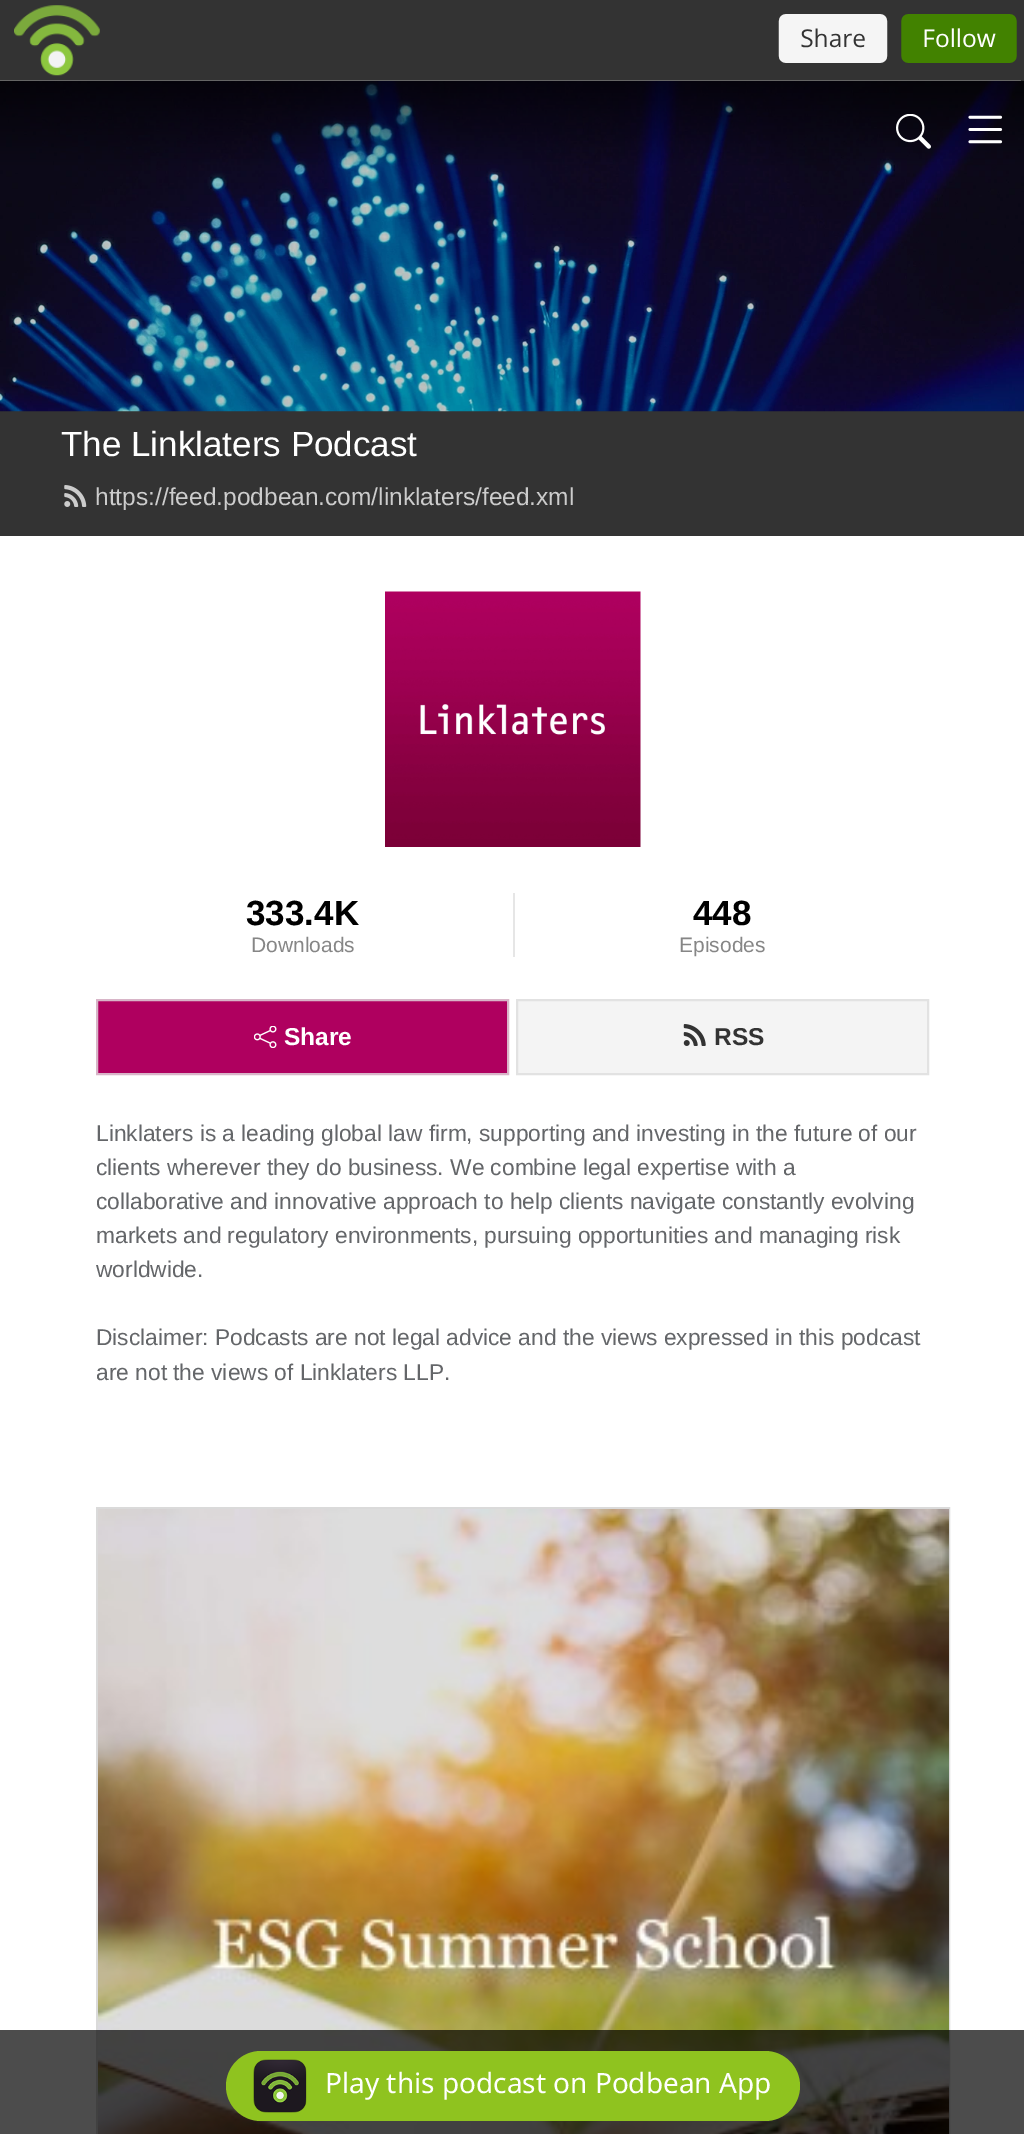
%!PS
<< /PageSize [1024 2134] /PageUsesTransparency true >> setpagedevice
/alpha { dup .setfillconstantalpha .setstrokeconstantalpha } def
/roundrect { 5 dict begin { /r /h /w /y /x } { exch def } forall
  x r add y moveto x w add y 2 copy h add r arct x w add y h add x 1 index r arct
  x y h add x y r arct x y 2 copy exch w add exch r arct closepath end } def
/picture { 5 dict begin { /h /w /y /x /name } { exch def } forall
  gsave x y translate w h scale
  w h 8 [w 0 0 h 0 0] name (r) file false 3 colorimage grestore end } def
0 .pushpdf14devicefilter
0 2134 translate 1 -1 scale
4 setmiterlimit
1 setgray
0 0 1024 2134 rectfill
0.2 setgray
0 0 1024 81 rectfill
(img1.rgb) 0 5 1021 76 picture
0 411 1024 125 rectfill
(img4.rgb) 0 81 1024 331 picture
(img2.rgb) 896 114 35 35 picture
(img3.rgb) 968 115 35 29 picture
/LiberationSans-Regular [35 0 0 -35 0 0] selectfont
1 setgray
61 456 moveto (The Linklaters Podcast) show
(img5.rgb) 64 485 23 22 picture
/LiberationSans-Regular [24.5 0 0 -24.5 0 0] selectfont
0.8 setgray
95 505 moveto (https://feed.podbean.com/linklaters/feed.xml) show
(img6.rgb) 385 591 256 256 picture
/LiberationSans-Bold [35 0 0 -35 0 0] selectfont
0 setgray
246 925 moveto (333.4K) show
/LiberationSans-Regular [21 0 0 -21 0 0] selectfont
0.525 setgray
251 952 moveto (Downloads) show
0.902 setgray
513 893 2 64 rectfill
/LiberationSans-Bold [35 0 0 -35 0 0] selectfont
0 setgray
693 925 moveto (448) show
/LiberationSans-Regular [21 0 0 -21 0 0] selectfont
0.525 setgray
679 952 moveto (Episodes) show
0.686 0 0.373 setrgbcolor
newpath 97 1000 moveto 508 1000 lineto 508 1074 lineto 97 1074 lineto closepath gsave fill grestore
0.847 0.71 0.784 setrgbcolor
2 setlinewidth
stroke
(img7.rgb) 254 1026 23 22 picture
/LiberationSans-Bold [24.5 0 0 -24.5 0 0] selectfont
1 setgray
284 1045 moveto (Share) show
0.957 setgray
newpath 517 1000 moveto 928 1000 lineto 928 1074 lineto 517 1074 lineto closepath gsave fill grestore
0.886 setgray
stroke
(img8.rgb) 683 1024 23 22 picture
0.2 setgray
714 1045 moveto (RSS) show
/LiberationSans-Regular [22.75 0 0 -22.75 0 0] selectfont
0.392 0.4 0.412 setrgbcolor
96 1141 moveto (Linklaters is a leading global law firm, supporting and investing in the future of our) show
96 1175 moveto (clients wherever they do business. We combine legal expertise with a) show
96 1209 moveto (collaborative and innovative approach to help clients navigate constantly evolving) show
96 1243 moveto (markets and regulatory environments, pursuing opportunities and managing risk) show
96 1277 moveto (worldwide.) show
96 1345 moveto (Disclaimer: Podcasts are not legal advice and the views expressed in this podcast) show
96 1380 moveto (are not the views of Linklaters LLP.) show
0.855 setgray
97 1508 852 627 rectstroke
(img9.rgb) 98 1509 851 625 picture
0.7 alpha
0 setgray
0 2030 1024 104 rectfill
1 alpha
0.561 0.765 0.122 setrgbcolor
226 2051 574 70 35 roundrect fill
(img10.rgb) 253 2059 54 54 picture
/NotoSans-Regular [28 0 0 -28 0 0] selectfont
1 setgray
325 2093 moveto (Play this podcast on Podbean App) show
.poppdf14devicefilter showpage
